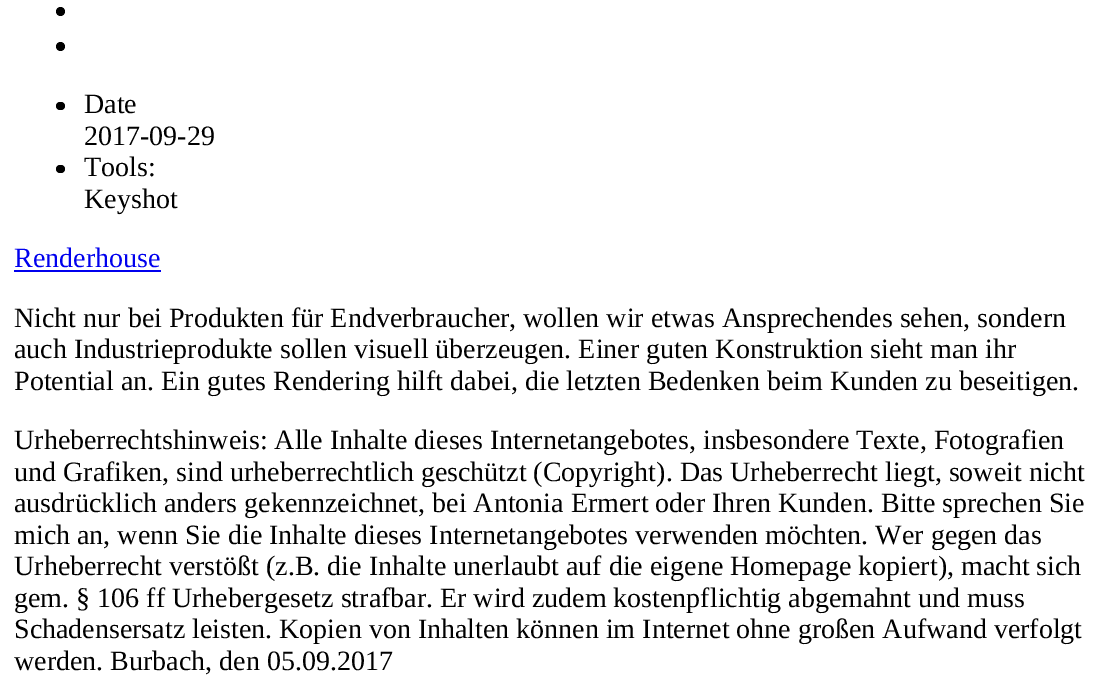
%!PS
<< /PageSize [1117 694] >> setpagedevice
/roundrect { 5 dict begin { /r /h /w /y /x } { exch def } forall
  x r add y moveto x w add y 2 copy h add r arct x w add y h add x 1 index r arct
  x y h add x y r arct x y 2 copy exch w add exch r arct closepath end } def
0 694 translate 1 -1 scale
4 setmiterlimit
1 setgray
0 0 1117 694 rectfill
0 setgray
newpath 60.5 11.5 4.5 0 360 arc closepath fill
newpath 60.5 46.5 4.5 0 360 arc closepath fill
56 102 9 8 4 roundrect fill
/LiberationSerif-Regular [28 0 0 -28 0 0] selectfont
84 113 moveto (Date) show
84 145 moveto (2017-09-29) show
56 165 9 8 4 roundrect fill
84 176 moveto (Tools:) show
84 208 moveto (Keyshot) show
0 0 0.933 setrgbcolor
14 267 moveto (Renderhouse) show
14 270 147 2 rectfill
0 setgray
14 327 moveto (Nicht nur bei Produkten für Endverbraucher, wollen wir etwas Ansprechendes sehen, sondern) show
14 358 moveto (auch Industrieprodukte sollen visuell überzeugen. Einer guten Konstruktion sieht man ihr) show
14 390 moveto (Potential an. Ein gutes Rendering hilft dabei, die letzten Bedenken beim Kunden zu beseitigen.) show
14 449 moveto (Urheberrechtshinweis: Alle Inhalte dieses Internetangebotes, insbesondere Texte, Fotografien) show
14 481 moveto (und Grafiken, sind urheberrechtlich geschützt \(Copyright\). Das Urheberrecht liegt, soweit nicht) show
14 512 moveto (ausdrücklich anders gekennzeichnet, bei Antonia Ermert oder Ihren Kunden. Bitte sprechen Sie) show
14 544 moveto (mich an, wenn Sie die Inhalte dieses Internetangebotes verwenden möchten. Wer gegen das) show
14 575 moveto (Urheberrecht verstößt \(z.B. die Inhalte unerlaubt auf die eigene Homepage kopiert\), macht sich) show
14 607 moveto (gem. § 106 ff Urhebergesetz strafbar. Er wird zudem kostenpflichtig abgemahnt und muss) show
14 638 moveto (Schadensersatz leisten. Kopien von Inhalten können im Internet ohne großen Aufwand verfolgt) show
14 670 moveto (werden. Burbach, den 05.09.2017) show
showpage
